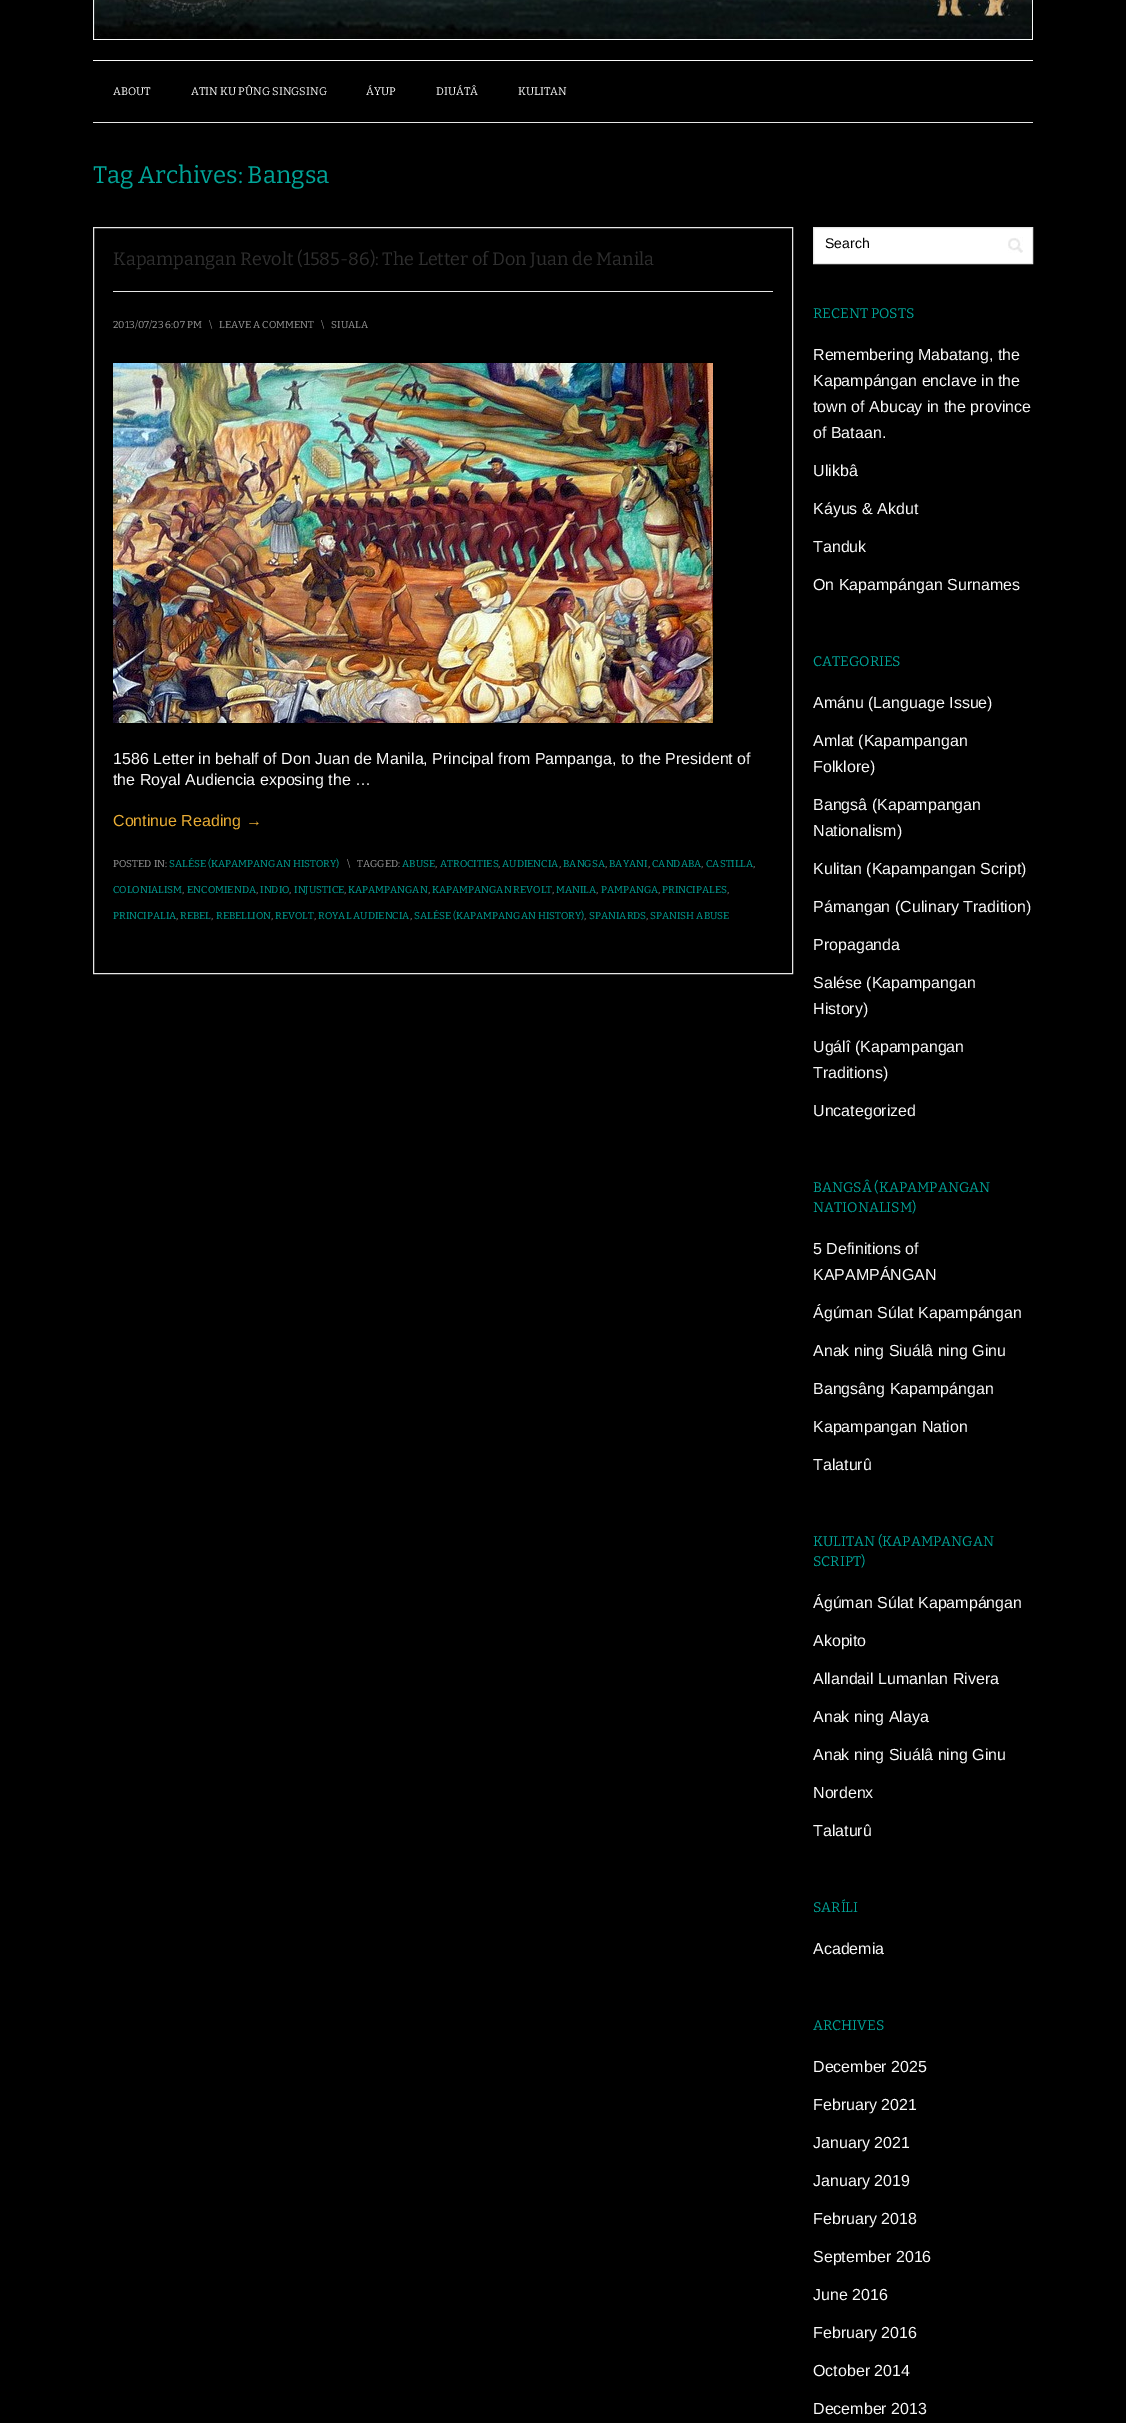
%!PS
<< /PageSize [1126 2423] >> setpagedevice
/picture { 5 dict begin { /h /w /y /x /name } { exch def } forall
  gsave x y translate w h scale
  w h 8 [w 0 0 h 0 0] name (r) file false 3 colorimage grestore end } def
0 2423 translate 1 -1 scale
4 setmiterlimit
0 setgray
0 0 1126 2423 rectfill
(img1.rgb) 93 0 940 40 picture
0.976 setgray
93 60 940 1 rectfill
0.906 setgray
93 122 940 1 rectfill
/Bitter-Thin [11 0 0 -11 0 0] selectfont
0.976 setgray
113 95 moveto (ABOUT) show
191 95 moveto (ATIN KU PÛNG SINGSING) show
366 95 moveto (ÁYUP) show
436 95 moveto (DIUÁTÂ) show
518 95 moveto (KULITAN) show
/Bitter-Thin [24 0 0 -24 0 0] selectfont
0 0.643 0.596 setrgbcolor
93 183 moveto (Tag Archives: Bangsa) show
0.906 setgray
93.5 227.5 699 746 rectstroke
113 291 660 1 rectfill
/Bitter-Thin [18 0 0 -18 0 0] selectfont
0.184 setgray
113 265 moveto (Kapampangan Revolt \(1585-86\): The Letter of Don Juan de Manila) show
/Bitter-Thin [10 0 0 -10 0 0] selectfont
0.6 setgray
113 328 moveto (2013/07/23 6:07 PM) show
209 328 moveto (\\) show
219 328 moveto (LEAVE A COMMENT) show
321 328 moveto (\\) show
331 328 moveto (SIUALA) show
(img2.rgb) 113 363 600 360 picture
/LiberationSans-Regular [16 0 0 -16 0 0] selectfont
0.976 setgray
113 764 moveto (1586 Letter in behalf of Don Juan de Manila, Principal from Pampanga, to the President of) show
113 785 moveto (the Royal Audiencia exposing the …) show
0.91 0.675 0.208 setrgbcolor
113 826 moveto (Continue Reading →) show
/Bitter-Thin [10 0 0 -10 0 0] selectfont
0.6 setgray
113 867 moveto (POSTED IN:) show
0 0.643 0.596 setrgbcolor
169 867 moveto (SALÉSE \(KAPAMPANGAN HISTORY\)) show
0.6 setgray
347 867 moveto (\\) show
357 867 moveto (TAGGED:) show
0 0.643 0.596 setrgbcolor
402 867 moveto (ABUSE) show
440 867 moveto (ATROCITIES) show
502 867 moveto (AUDIENCIA) show
563 867 moveto (BANGSA) show
609 867 moveto (BAYANI) show
652 867 moveto (CANDABA) show
706 867 moveto (CASTILLA) show
0.6 setgray
435 867 moveto (,) show
498 867 moveto (,) show
559 867 moveto (,) show
605 867 moveto (,) show
648 867 moveto (,) show
701 867 moveto (,) show
753 867 moveto (,) show
0 0.643 0.596 setrgbcolor
113 893 moveto (COLONIALISM) show
187 893 moveto (ENCOMIENDA) show
260 893 moveto (INDIO) show
294 893 moveto (INJUSTICE) show
348 893 moveto (KAPAMPANGAN) show
432 893 moveto (KAPAMPANGAN REVOLT) show
556 893 moveto (MANILA) show
601 893 moveto (PAMPANGA) show
662 893 moveto (PRINCIPALES) show
0.6 setgray
182 893 moveto (,) show
256 893 moveto (,) show
289 893 moveto (,) show
344 893 moveto (,) show
428 893 moveto (,) show
552 893 moveto (,) show
596 893 moveto (,) show
658 893 moveto (,) show
727 893 moveto (,) show
0 0.643 0.596 setrgbcolor
113 919 moveto (PRINCIPALIA) show
180 919 moveto (REBEL) show
216 919 moveto (REBELLION) show
275 919 moveto (REVOLT) show
318 919 moveto (ROYAL AUDIENCIA) show
414 919 moveto (SALÉSE \(KAPAMPANGAN HISTORY\)) show
589 919 moveto (SPANIARDS) show
650 919 moveto (SPANISH ABUSE) show
0.6 setgray
176 919 moveto (,) show
211 919 moveto (,) show
271 919 moveto (,) show
314 919 moveto (,) show
410 919 moveto (,) show
584 919 moveto (,) show
646 919 moveto (,) show
1 setgray
newpath 813.5 227.5 moveto 1032.5 227.5 lineto 1032.5 263.5 lineto 813.5 263.5 lineto closepath gsave fill grestore
0.906 setgray
stroke
/LiberationSans-Regular [14 0 0 -14 0 0] selectfont
0 setgray
825 248 moveto (Search) show
(img3.rgb) 1008 237 15 16 picture
/Bitter-Thin [14 0 0 -14 0 0] selectfont
0 0.643 0.596 setrgbcolor
813 318 moveto (RECENT POSTS) show
/LiberationSans-Regular [16 0 0 -16 0 0] selectfont
0.976 setgray
813 360 moveto (Remembering Mabatang, the) show
813 386 moveto (Kapampángan enclave in the) show
813 412 moveto (town of Abucay in the province) show
813 438 moveto (of Bataan.) show
813 476 moveto (Ulikbâ) show
813 514 moveto (Káyus & Akdut) show
813 552 moveto (Tanduk) show
813 590 moveto (On Kapampángan Surnames) show
/Bitter-Thin [14 0 0 -14 0 0] selectfont
0 0.643 0.596 setrgbcolor
813 666 moveto (CATEGORIES) show
/LiberationSans-Regular [16 0 0 -16 0 0] selectfont
0.976 setgray
813 708 moveto (Amánu \(Language Issue\)) show
813 746 moveto (Amlat \(Kapampangan) show
813 772 moveto (Folklore\)) show
813 810 moveto (Bangsâ \(Kapampangan) show
813 836 moveto (Nationalism\)) show
813 874 moveto (Kulitan \(Kapampangan Script\)) show
813 912 moveto (Pámangan \(Culinary Tradition\)) show
813 950 moveto (Propaganda) show
813 988 moveto (Salése \(Kapampangan) show
813 1014 moveto (History\)) show
813 1052 moveto (Ugálî \(Kapampangan) show
813 1078 moveto (Traditions\)) show
813 1116 moveto (Uncategorized) show
/Bitter-Thin [14 0 0 -14 0 0] selectfont
0 0.643 0.596 setrgbcolor
813 1192 moveto (BANGSÂ \(KAPAMPANGAN) show
813 1212 moveto (NATIONALISM\)) show
/LiberationSans-Regular [16 0 0 -16 0 0] selectfont
0.976 setgray
813 1254 moveto (5 Definitions of) show
813 1280 moveto (KAPAMPÁNGAN) show
813 1318 moveto (Ágúman Súlat Kapampángan) show
813 1356 moveto (Anak ning Siuálâ ning Ginu) show
813 1394 moveto (Bangsâng Kapampángan) show
813 1432 moveto (Kapampangan Nation) show
813 1470 moveto (Talaturû) show
/Bitter-Thin [14 0 0 -14 0 0] selectfont
0 0.643 0.596 setrgbcolor
813 1546 moveto (KULITAN \(KAPAMPANGAN) show
813 1566 moveto (SCRIPT\)) show
/LiberationSans-Regular [16 0 0 -16 0 0] selectfont
0.976 setgray
813 1608 moveto (Ágúman Súlat Kapampángan) show
813 1646 moveto (Akopito) show
813 1684 moveto (Allandail Lumanlan Rivera) show
813 1722 moveto (Anak ning Alaya) show
813 1760 moveto (Anak ning Siuálâ ning Ginu) show
813 1798 moveto (Nordenx) show
813 1836 moveto (Talaturû) show
/Bitter-Thin [14 0 0 -14 0 0] selectfont
0 0.643 0.596 setrgbcolor
813 1912 moveto (SARÍLI) show
/LiberationSans-Regular [16 0 0 -16 0 0] selectfont
0.976 setgray
813 1954 moveto (Academia) show
/Bitter-Thin [14 0 0 -14 0 0] selectfont
0 0.643 0.596 setrgbcolor
813 2030 moveto (ARCHIVES) show
/LiberationSans-Regular [16 0 0 -16 0 0] selectfont
0.976 setgray
813 2072 moveto (December 2025) show
813 2110 moveto (February 2021) show
813 2148 moveto (January 2021) show
813 2186 moveto (January 2019) show
813 2224 moveto (February 2018) show
813 2262 moveto (September 2016) show
813 2300 moveto (June 2016) show
813 2338 moveto (February 2016) show
813 2376 moveto (October 2014) show
813 2414 moveto (December 2013) show
showpage
